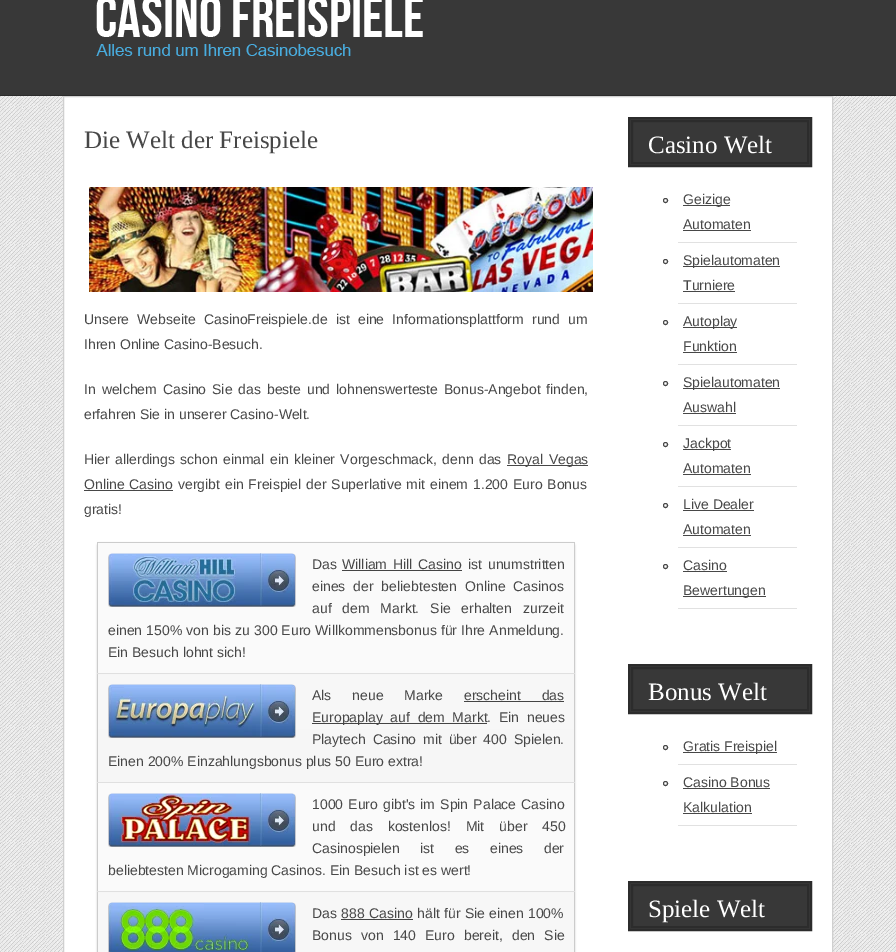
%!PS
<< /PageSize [896 952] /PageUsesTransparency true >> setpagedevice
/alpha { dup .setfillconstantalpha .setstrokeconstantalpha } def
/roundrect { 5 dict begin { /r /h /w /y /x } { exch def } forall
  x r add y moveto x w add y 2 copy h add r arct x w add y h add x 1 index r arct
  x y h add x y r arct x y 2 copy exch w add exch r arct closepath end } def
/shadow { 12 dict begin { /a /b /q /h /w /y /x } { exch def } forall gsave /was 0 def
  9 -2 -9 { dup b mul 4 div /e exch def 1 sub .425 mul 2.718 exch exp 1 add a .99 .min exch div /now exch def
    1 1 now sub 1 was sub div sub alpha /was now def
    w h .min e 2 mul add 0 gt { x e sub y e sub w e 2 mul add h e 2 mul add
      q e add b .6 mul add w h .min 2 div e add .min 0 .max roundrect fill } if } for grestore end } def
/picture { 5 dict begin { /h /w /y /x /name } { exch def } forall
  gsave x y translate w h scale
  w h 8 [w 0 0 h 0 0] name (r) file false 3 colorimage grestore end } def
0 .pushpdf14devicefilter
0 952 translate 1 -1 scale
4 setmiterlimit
1 setgray
0 0 896 952 rectfill
(img1.rgb) 0 96 896 856 picture
0.22 setgray
0 0 896 95 rectfill
0.173 setgray
0 95 896 1 rectfill
(img2.rgb) 96 0 327 56 picture
1 setgray
newpath 63.5 96.5 moveto 832.5 96.5 lineto 832.5 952.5 lineto 63.5 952.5 lineto closepath gsave fill grestore
0.816 setgray
stroke
/LiberationSerif-Regular [25 0 0 -25 0 0] selectfont
0.278 setgray
84 148 moveto (Die Welt der Freispiele) show
(img3.rgb) 89 187 504 105 picture
/LiberationSans-Regular [14 0 0 -14 0 0] selectfont
84 324 moveto 4.25 0 32 (Unsere Webseite CasinoFreispiele.de ist eine Informationsplattform rund um) widthshow
84 349 moveto (Ihren Online Casino-Besuch.) show
84 394 moveto 2 0 32 (In welchem Casino Sie das beste und lohnenswerteste Bonus-Angebot finden,) widthshow
84 419 moveto (erfahren Sie in unserer Casino-Welt.) show
84 464 moveto 1.5 0 32 (Hier allerdings schon einmal ein kleiner Vorgeschmack, denn das) widthshow
507 465 81 1 rectfill
507 464 moveto 2 0 32 (Royal Vegas) widthshow
84 489 moveto 1 0 32 (Online Casino) widthshow
84 490 89 1 rectfill
178 489 moveto 1 0 32 (vergibt ein Freispiel der Superlative mit einem 1.200 Euro Bonus) widthshow
84 514 moveto (gratis!) show
0.82 setgray
97 543 478 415 3 1 1 shadow
0.8 setgray
97 542 478 1 rectfill
gsave newpath 97 674 moveto 575 674 lineto 575 675 lineto 97 675 lineto closepath clip newpath
<< /ShadingType 2 /ColorSpace /DeviceRGB /Coords [97 568 97 675] /Extend [true true] /Function << /FunctionType 2 /Domain [0 1] /C0 [0.973 0.973 0.973] /C1 [0.965 0.965 0.965] /N 1 >> >> shfill grestore
gsave newpath 97 783 moveto 575 783 lineto 575 784 lineto 97 784 lineto closepath clip newpath
<< /ShadingType 2 /ColorSpace /DeviceRGB /Coords [97 677 97 784] /Extend [true true] /Function << /FunctionType 2 /Domain [0 1] /C0 [0.984 0.984 0.984] /C1 [0.98 0.98 0.98] /N 1 >> >> shfill grestore
gsave newpath 97 892 moveto 575 892 lineto 575 893 lineto 97 893 lineto closepath clip newpath
<< /ShadingType 2 /ColorSpace /DeviceRGB /Coords [97 741 97 893] /Extend [true true] /Function << /FunctionType 2 /Domain [0 1] /C0 [0.973 0.973 0.973] /C1 [0.965 0.965 0.965] /N 1 >> >> shfill grestore
574 542 1 410 rectfill
97 542 1 410 rectfill
gsave newpath 98 543 moveto 574 543 lineto 574 673 lineto 98 673 lineto closepath clip newpath
<< /ShadingType 2 /ColorSpace /DeviceRGB /Coords [97 543 97 673] /Extend [true true] /Function << /FunctionType 2 /Domain [0 1] /C0 [0.984 0.984 0.984] /C1 [0.98 0.98 0.98] /N 1 >> >> shfill grestore
0.878 setgray
97 673 478 1 rectfill
(img4.rgb) 108 553 188 54 picture
0.278 setgray
312 569 moveto (Das) show
342 569 moveto 2 0 32 (William Hill Casino) widthshow
0.267 setgray
342 570 120 1 rectfill
0.278 setgray
468 569 moveto 2 0 32 (ist unumstritten) widthshow
312 591 moveto 4 0 32 (eines der beliebtesten Online Casinos) widthshow
312 613 moveto 7 0 32 (auf dem Markt. Sie erhalten zurzeit) widthshow
108 635 moveto 0.25 0 32 (einen 150% von bis zu 300 Euro Willkommensbonus für Ihre Anmeldung.) widthshow
108 657 moveto (Ein Besuch lohnt sich!) show
gsave newpath 98 675 moveto 574 675 lineto 574 782 lineto 98 782 lineto closepath clip newpath
<< /ShadingType 2 /ColorSpace /DeviceRGB /Coords [97 675 97 782] /Extend [true true] /Function << /FunctionType 2 /Domain [0 1] /C0 [0.973 0.973 0.973] /C1 [0.965 0.965 0.965] /N 1 >> >> shfill grestore
0.878 setgray
97 782 478 1 rectfill
(img5.rgb) 108 684 188 54 picture
0.278 setgray
312 700 moveto 17 0 32 (Als neue Marke) widthshow
464 700 moveto 17 0 32 (erscheint das) widthshow
0.267 setgray
464 701 100 1 rectfill
312 723 175 1 rectfill
0.278 setgray
312 722 moveto 3.75 0 32 (Europaplay auf dem Markt. Ein neues) widthshow
312 744 moveto 3 0 32 (Playtech Casino mit über 400 Spielen.) widthshow
108 766 moveto (Einen 200% Einzahlungsbonus plus 50 Euro extra!) show
gsave newpath 98 784 moveto 574 784 lineto 574 891 lineto 98 891 lineto closepath clip newpath
<< /ShadingType 2 /ColorSpace /DeviceRGB /Coords [97 784 97 891] /Extend [true true] /Function << /FunctionType 2 /Domain [0 1] /C0 [0.984 0.984 0.984] /C1 [0.98 0.98 0.98] /N 1 >> >> shfill grestore
0.878 setgray
97 891 478 1 rectfill
(img6.rgb) 108 793 188 54 picture
0.278 setgray
312 809 moveto 1.25 0 32 (1000 Euro gibt's im Spin Palace Casino) widthshow
312 831 moveto 11 0 32 (und das kostenlos! Mit über 450) widthshow
312 853 moveto 16.5 0 32 (Casinospielen ist es eines der) widthshow
108 875 moveto (beliebtesten Microgaming Casinos. Ein Besuch ist es wert!) show
gsave newpath 98 893 moveto 574 893 lineto 574 952 lineto 98 952 lineto closepath clip newpath
<< /ShadingType 2 /ColorSpace /DeviceRGB /Coords [97 893 97 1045] /Extend [true true] /Function << /FunctionType 2 /Domain [0 1] /C0 [0.973 0.973 0.973] /C1 [0.965 0.965 0.965] /N 1 >> >> shfill grestore
(img7.rgb) 108 902 188 50 picture
312 918 moveto (Das) show
341 918 moveto 1 0 32 (888 Casino) widthshow
0.267 setgray
341 919 72 1 rectfill
0.278 setgray
417 918 moveto 0.5 0 32 (hält für Sie einen 100%) widthshow
312 940 moveto 5.25 0 32 (Bonus von 140 Euro bereit, den Sie) widthshow
0.22 setgray
newpath 629 118 moveto 811 118 lineto 811 166 lineto 629 166 lineto closepath gsave fill grestore
0.173 setgray
2 setlinewidth
stroke
632 121 176 42 rectstroke
/LiberationSerif-Regular [25 0 0 -25 0 0] selectfont
1 setgray
648 153 moveto (Casino Welt) show
0.882 setgray
678 242 119 1 rectfill
0.278 setgray
1 setlinewidth
newpath 665.5 200.5 2 0 360 arc closepath stroke
683 205 47 1 rectfill
/LiberationSans-Regular [14 0 0 -14 0 0] selectfont
683 204 moveto (Geizige) show
683 229 moveto (Automaten) show
683 230 68 1 rectfill
0.882 setgray
678 303 119 1 rectfill
0.278 setgray
newpath 665.5 261.5 2 0 360 arc closepath stroke
683 266 97 1 rectfill
683 265 moveto (Spielautomaten) show
683 290 moveto (Turniere) show
683 291 52 1 rectfill
0.882 setgray
678 364 119 1 rectfill
0.278 setgray
newpath 665.5 322.5 2 0 360 arc closepath stroke
683 327 54 1 rectfill
683 326 moveto (Autoplay) show
683 351 moveto (Funktion) show
683 352 54 1 rectfill
0.882 setgray
678 425 119 1 rectfill
0.278 setgray
newpath 665.5 383.5 2 0 360 arc closepath stroke
683 388 97 1 rectfill
683 387 moveto (Spielautomaten) show
683 412 moveto (Auswahl) show
683 413 53 1 rectfill
0.882 setgray
678 486 119 1 rectfill
0.278 setgray
newpath 665.5 444.5 2 0 360 arc closepath stroke
683 449 48 1 rectfill
683 448 moveto (Jackpot) show
683 473 moveto (Automaten) show
683 474 68 1 rectfill
0.882 setgray
678 547 119 1 rectfill
0.278 setgray
newpath 665.5 505.5 2 0 360 arc closepath stroke
683 509 moveto (Live Dealer) show
683 510 71 1 rectfill
683 534 moveto (Automaten) show
683 535 68 1 rectfill
0.882 setgray
678 608 119 1 rectfill
0.278 setgray
newpath 665.5 566.5 2 0 360 arc closepath stroke
683 570 moveto (Casino) show
683 571 44 1 rectfill
683 596 83 1 rectfill
683 595 moveto (Bewertungen) show
0.22 setgray
newpath 629 665 moveto 811 665 lineto 811 713 lineto 629 713 lineto closepath gsave fill grestore
0.173 setgray
2 setlinewidth
stroke
632 668 176 42 rectstroke
/LiberationSerif-Regular [25 0 0 -25 0 0] selectfont
1 setgray
648 700 moveto (Bonus Welt) show
0.882 setgray
678 764 119 1 rectfill
0.278 setgray
1 setlinewidth
newpath 665.5 747.5 2 0 360 arc closepath stroke
683 752 94 1 rectfill
/LiberationSans-Regular [14 0 0 -14 0 0] selectfont
683 751 moveto (Gratis Freispiel) show
0.882 setgray
678 825 119 1 rectfill
0.278 setgray
newpath 665.5 783.5 2 0 360 arc closepath stroke
683 787 moveto (Casino Bonus) show
683 788 87 1 rectfill
683 812 moveto (Kalkulation) show
683 813 69 1 rectfill
0.22 setgray
newpath 629 882 moveto 811 882 lineto 811 930 lineto 629 930 lineto closepath gsave fill grestore
0.173 setgray
2 setlinewidth
stroke
632 885 176 42 rectstroke
/LiberationSerif-Regular [25 0 0 -25 0 0] selectfont
1 setgray
648 917 moveto (Spiele Welt) show
.poppdf14devicefilter showpage
